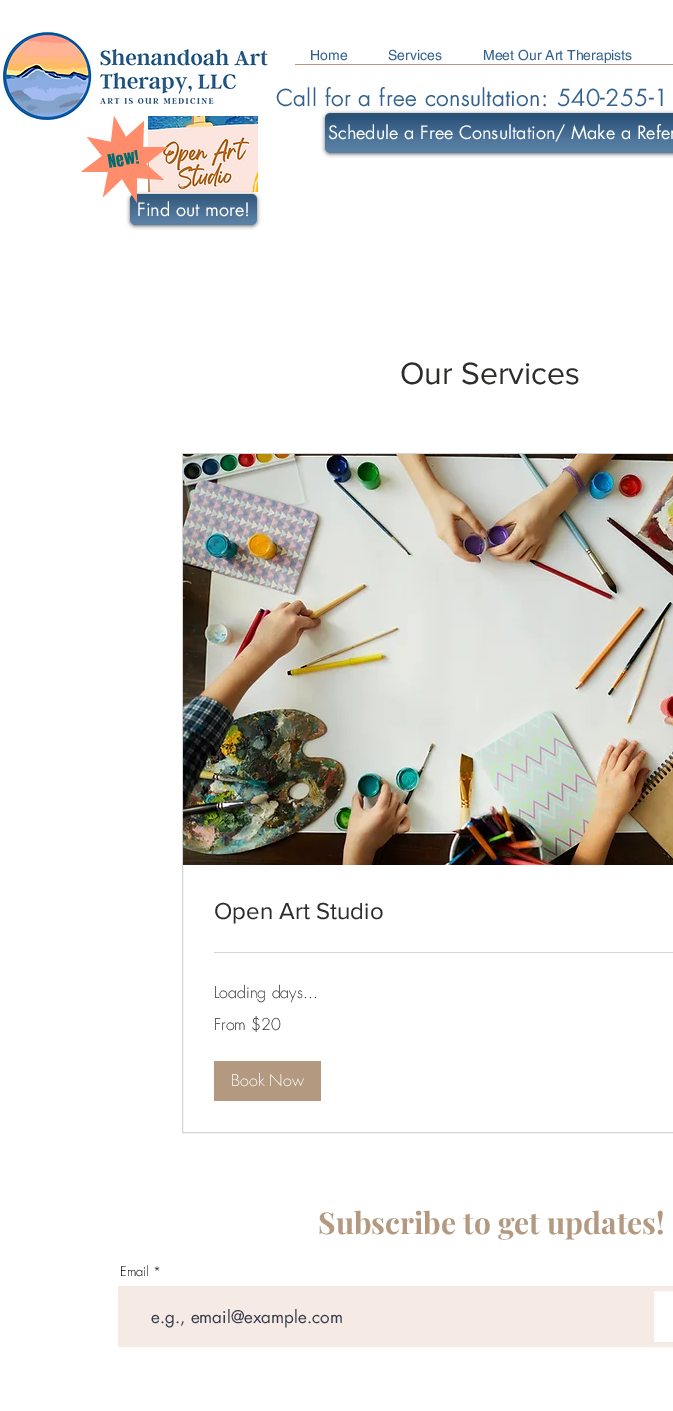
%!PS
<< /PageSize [673 1411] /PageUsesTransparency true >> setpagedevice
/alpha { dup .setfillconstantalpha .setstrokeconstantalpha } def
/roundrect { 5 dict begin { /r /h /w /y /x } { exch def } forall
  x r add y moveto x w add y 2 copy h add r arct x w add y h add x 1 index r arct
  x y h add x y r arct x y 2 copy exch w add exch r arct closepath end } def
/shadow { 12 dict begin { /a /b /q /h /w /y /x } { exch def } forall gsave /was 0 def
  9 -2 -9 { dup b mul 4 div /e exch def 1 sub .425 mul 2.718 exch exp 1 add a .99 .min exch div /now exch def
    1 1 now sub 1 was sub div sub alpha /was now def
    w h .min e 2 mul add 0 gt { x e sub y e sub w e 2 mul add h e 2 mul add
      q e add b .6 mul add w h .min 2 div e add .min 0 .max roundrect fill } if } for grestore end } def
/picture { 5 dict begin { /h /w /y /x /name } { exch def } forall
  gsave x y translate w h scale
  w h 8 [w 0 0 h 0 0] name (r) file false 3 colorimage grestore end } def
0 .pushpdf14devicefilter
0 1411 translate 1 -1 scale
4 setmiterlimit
1 setgray
0 0 673 1411 rectfill
(img1.rgb) 2 32 266 89 picture
/helvetica-Regular [14 0 0 -14 0 0] selectfont
0.196 0.38 0.553 setrgbcolor
310 60 moveto (Home) show
388 60 moveto (Services) show
483 60 moveto (Meet Our Art Therapists) show
0.698 0.6 0.498 setrgbcolor
295 64 378 1 rectfill
/futura-Bold [22 0 0 -22 0 0] selectfont
0.196 0.38 0.553 setrgbcolor
276 106 moveto 0.9 0 (Call for a free consultation: 540-255-1) ashow
(img2.rgb) 148 116 110 76 picture
0 setgray
130 195 127 31 5 2 0.6 shadow
0.196 0.38 0.553 setrgbcolor
130 194 127 31 5 roundrect fill
(img5.rgb) 130 194 127 25 picture
(img6.rgb) 130 194 127 31 picture
/futura-Regular [18 0 0 -18 0 0] selectfont
1 setgray
137 216 moveto (Find out more!) show
1 0.549 0.42 setrgbcolor
newpath 126 137 moveto 114 116 lineto 111 142 lineto 87 137 lineto 102 156 lineto 81 172 lineto 108 172 lineto 103 197 lineto 122 179 lineto 137 203 lineto 137 178 lineto 164 180 lineto 146 164 lineto 168 147 lineto 143 147 lineto 144 121 lineto closepath fill
0 setgray
325 114 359 40 5 2 0.6 shadow
0.196 0.38 0.553 setrgbcolor
325 113 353 40 5 roundrect fill
(img3.rgb) 325 113 348 25 picture
(img4.rgb) 325 120 348 33 picture
1 setgray
328 139 moveto (Schedule a Free Consultation/ Make a Refer) show
/Anton-Regular [16 0 0 -16 0 0] selectfont
0 0.424 0.427 setrgbcolor
gsave 109 168 translate -9.3 rotate 0 0 moveto (New!) show grestore
/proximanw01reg-Regular [32 0 0 -32 0 0] selectfont
0.173 0.173 0.169 setrgbcolor
400 384 moveto (Our Services) show
0.835 setgray
182.5 453.5 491 679 rectstroke
(img7.rgb) 183 454 490 411 picture
/proximanw01reg-Regular [24 0 0 -24 0 0] selectfont
0.173 0.173 0.169 setrgbcolor
214 919 moveto (Open Art Studio) show
0.835 setgray
214 952 459 1 rectfill
/futura-Light [16 0 0 -16 0 0] selectfont
0.173 0.173 0.169 setrgbcolor
214 998 moveto (Loading days...) show
214 1030 moveto (From $20) show
0.698 0.6 0.498 setrgbcolor
214 1061 107 40 rectfill
1 setgray
231 1086 moveto (Book Now) show
/PlayfairDisplay-Bold [30 0 0 -30 0 0] selectfont
0.698 0.6 0.498 setrgbcolor
318 1234 moveto (Subscribe to get updates!) show
/futura-Light [13 0 0 -13 0 0] selectfont
0 setgray
120 1276 moveto (Email *) show
0.965 0.922 0.894 setrgbcolor
118 1286 531 61 rectfill
/futura-Regular [17 0 0 -17 0 0] selectfont
0.216 0.231 0.302 setrgbcolor
151 1323 moveto (e.g., email@example.com) show
0.965 0.922 0.894 setrgbcolor
5 setlinewidth
651.5 1288.5 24 56 rectstroke
.poppdf14devicefilter showpage
